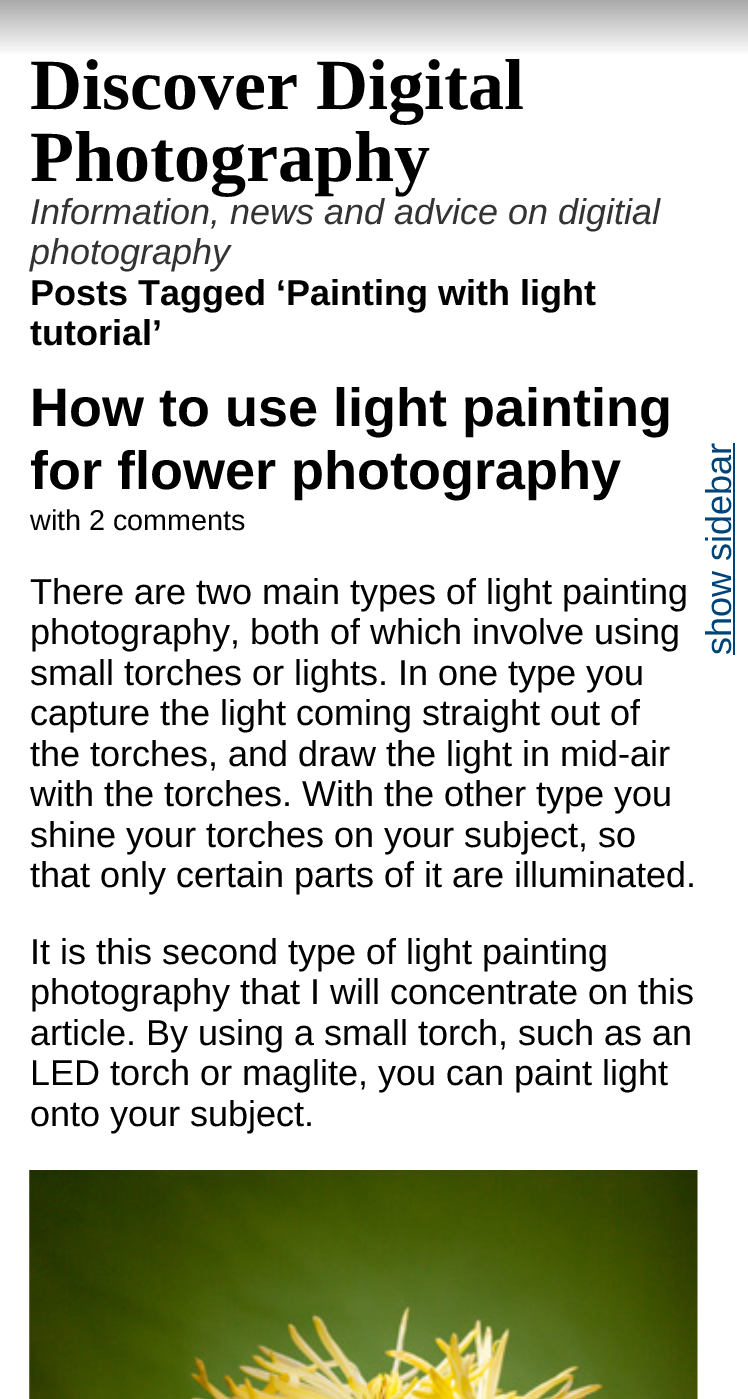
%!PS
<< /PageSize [748 1399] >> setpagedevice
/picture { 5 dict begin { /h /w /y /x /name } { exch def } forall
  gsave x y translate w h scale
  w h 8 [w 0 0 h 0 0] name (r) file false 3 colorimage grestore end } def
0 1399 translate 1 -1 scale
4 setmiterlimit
1 setgray
0 0 748 1399 rectfill
gsave newpath 0 0 moveto 748 0 lineto 748 54 lineto 0 54 lineto closepath clip newpath
<< /ShadingType 2 /ColorSpace /DeviceRGB /Coords [375 0 375 56] /Extend [true true] /Function << /FunctionType 2 /Domain [0 1] /C0 [0.667 0.667 0.667] /C1 [1 1 1] /N 1 >> >> shfill grestore
/LiberationSerif-Bold [72 0 0 -72 0 0] selectfont
0 setgray
30 109 moveto (Discover Digital) show
30 181 moveto (Photography) show
/LiberationSans-Italic [36 0 0 -36 0 0] selectfont
0.2 setgray
30 224 moveto (Information, news and advice on digitial) show
30 264 moveto (photography) show
/LiberationSans-Bold [36 0 0 -36 0 0] selectfont
0 setgray
30 305 moveto (Posts Tagged ‘Painting with light) show
30 345 moveto (tutorial’) show
/LiberationSans-Bold [54 0 0 -54 0 0] selectfont
30 426 moveto (How to use light painting) show
30 489 moveto (for flower photography) show
/LiberationSans-Regular [28.75 0 0 -28.75 0 0] selectfont
30 530 moveto (with 2 comments) show
/LiberationSans-Regular [36 0 0 -36 0 0] selectfont
30 604 moveto (There are two main types of light painting) show
30 644 moveto (photography, both of which involve using) show
30 685 moveto (small torches or lights. In one type you) show
30 725 moveto (capture the light coming straight out of) show
30 766 moveto (the torches, and draw the light in mid-air) show
30 806 moveto (with the torches. With the other type you) show
30 847 moveto (shine your torches on your subject, so) show
30 887 moveto (that only certain parts of it are illuminated.) show
30 964 moveto (It is this second type of light painting) show
30 1004 moveto (photography that I will concentrate on this) show
30 1045 moveto (article. By using a small torch, such as an) show
30 1085 moveto (LED torch or maglite, you can paint light) show
30 1126 moveto (onto your subject.) show
(img1.rgb) 29 1170 669 229 picture
0 0.267 0.467 setrgbcolor
733 443 2 212 rectfill
gsave 731 655 translate -90 rotate 0 0 moveto (show sidebar) show grestore
showpage
